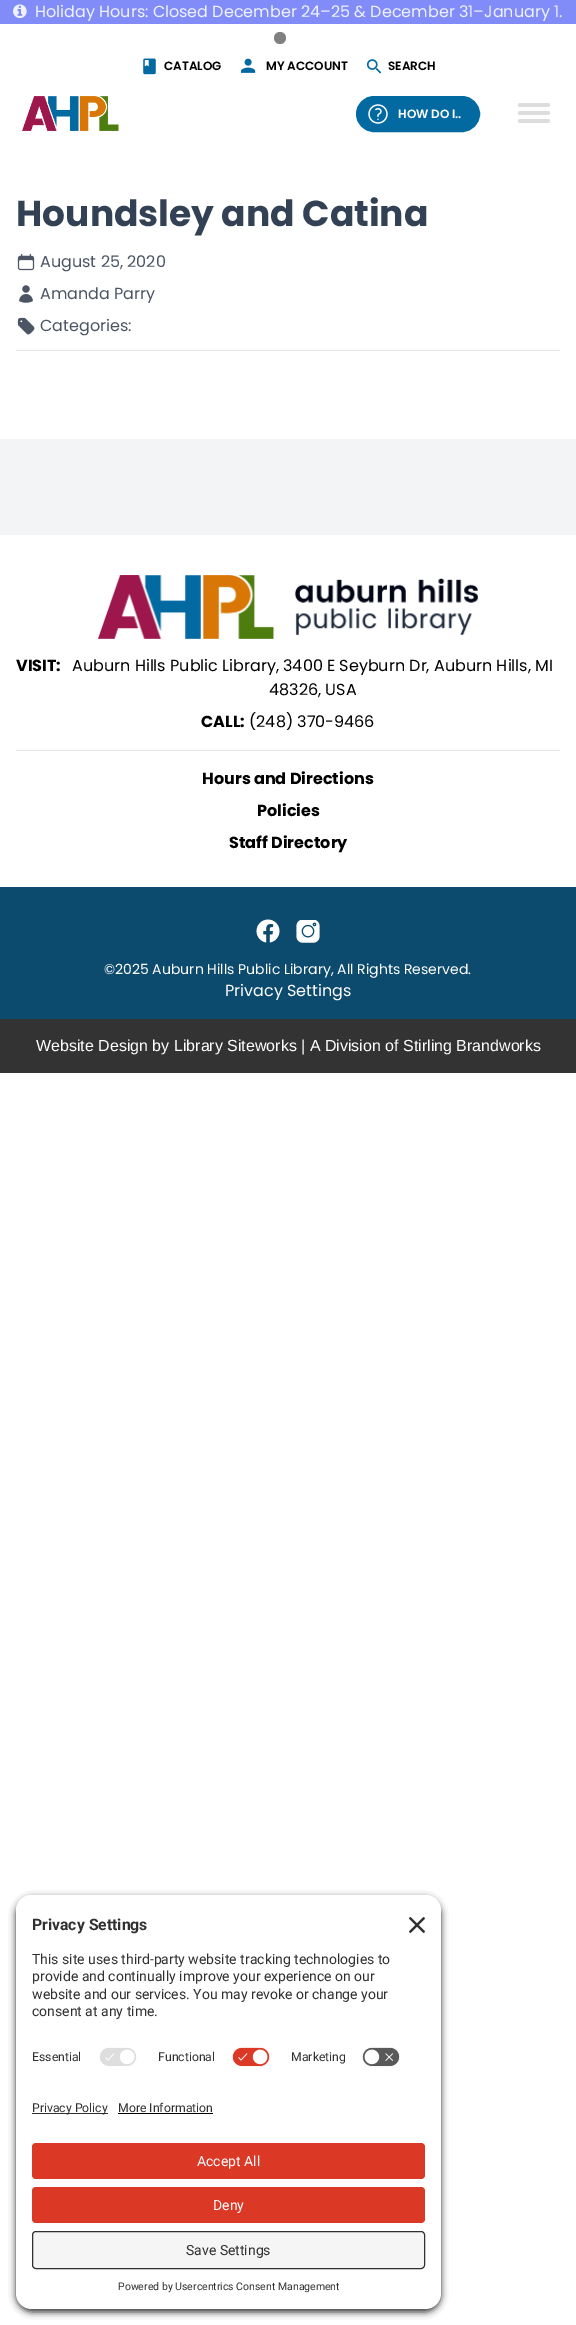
%!PS
<< /PageSize [576 2325] /PageUsesTransparency true >> setpagedevice
/alpha { dup .setfillconstantalpha .setstrokeconstantalpha } def
/roundrect { 5 dict begin { /r /h /w /y /x } { exch def } forall
  x r add y moveto x w add y 2 copy h add r arct x w add y h add x 1 index r arct
  x y h add x y r arct x y 2 copy exch w add exch r arct closepath end } def
/shadow { 12 dict begin { /a /b /q /h /w /y /x } { exch def } forall gsave /was 0 def
  9 -2 -9 { dup b mul 4 div /e exch def 1 sub .425 mul 2.718 exch exp 1 add a .99 .min exch div /now exch def
    1 1 now sub 1 was sub div sub alpha /was now def
    w h .min e 2 mul add 0 gt { x e sub y e sub w e 2 mul add h e 2 mul add
      q e add b .6 mul add w h .min 2 div e add .min 0 .max roundrect fill } if } for grestore end } def
/picture { 5 dict begin { /h /w /y /x /name } { exch def } forall
  gsave x y translate w h scale
  w h 8 [w 0 0 h 0 0] name (r) file false 3 colorimage grestore end } def
0 .pushpdf14devicefilter
0 2325 translate 1 -1 scale
4 setmiterlimit
1 setgray
0 0 576 2325 rectfill
0.506 0.549 0.973 setrgbcolor
0 0 576 24 rectfill
(img1.rgb) 13 4 14 15 picture
/Poppins-Regular [16 0 0 -16 0 0] selectfont
0.933 0.949 1 setrgbcolor
35 17 moveto (Holiday Hours: Closed December 24–25 & December 31–January 1.) show
0.502 setgray
newpath 280 38 6 0 360 arc closepath fill
(img2.rgb) 143 58 13 17 picture
/Poppins-SemiBold [12 0 0 -12 0 0] selectfont
0 setgray
164 70 moveto (CATALOG) show
(img3.rgb) 241 58 15 15 picture
266 70 moveto (MY ACCOUNT) show
(img4.rgb) 366 59 16 15 picture
388 70 moveto (SEARCH) show
(img5.rgb) 22 96 97 35 picture
0.867 setgray
518 103 32 4 2 roundrect fill
518 111 32 4 2 roundrect fill
518 119 32 4 2 roundrect fill
0.012 0.412 0.631 setrgbcolor
357 97 122 34 17 roundrect gsave fill grestore
2 setlinewidth
stroke
(img6.rgb) 368 104 20 20 picture
1 setgray
398 118 moveto (HOW DO I..) show
/Poppins-Bold [36 0 0 -36 0 0] selectfont
0.2 0.255 0.333 setrgbcolor
16 226 moveto (Houndsley and Catina) show
(img7.rgb) 17 253 18 18 picture
/Poppins-Regular [16 0 0 -16 0 0] selectfont
0.294 0.333 0.388 setrgbcolor
40 267 moveto (August 25, 2020) show
(img8.rgb) 19 285 14 18 picture
40 299 moveto (Amanda Parry) show
(img9.rgb) 17 317 18 18 picture
40 331 moveto (Categories:) show
0.898 0.906 0.922 setrgbcolor
16 350 544 1 rectfill
0.953 0.957 0.965 setrgbcolor
0 439 576 96 rectfill
(img10.rgb) 98 575 380 64 picture
/Poppins-Bold [16 0 0 -16 0 0] selectfont
0 setgray
16 671 moveto (VISIT:) show
/Poppins-Regular [16 0 0 -16 0 0] selectfont
72 671 moveto (Auburn Hills Public Library, 3400 E Seyburn Dr, Auburn Hills, MI) show
269 695 moveto (48326, USA) show
/Poppins-Bold [16 0 0 -16 0 0] selectfont
201 727 moveto (CALL:) show
/Poppins-Regular [16 0 0 -16 0 0] selectfont
249 727 moveto (\(248\) 370-9466) show
0.898 0.906 0.922 setrgbcolor
16 750 544 1 rectfill
/Poppins-Bold [16 0 0 -16 0 0] selectfont
0 setgray
202 784 moveto (Hours and Directions) show
257 816 moveto (Policies) show
229 848 moveto (Staff Directory) show
0.047 0.29 0.431 setrgbcolor
0 887 576 132 rectfill
(img11.rgb) 256 919 24 24 picture
(img12.rgb) 296 920 24 23 picture
/Poppins-Regular [14 0 0 -14 0 0] selectfont
1 setgray
104 974 moveto (©2025 Auburn Hills Public Library, All Rights Reserved.) show
/Poppins-Regular [16 0 0 -16 0 0] selectfont
225 996 moveto (Privacy Settings) show
0.2 setgray
0 1019 576 54 rectfill
/LiberationSans-Regular [16 0 0 -16 0 0] selectfont
1 setgray
36 1051 moveto (Website Design by Library Siteworks | A Division of Stirling Brandworks) show
0 setgray
16 1898 425 414 16 3.5 0.8 shadow
1 setgray
newpath 32 1895 moveto 425 1895 lineto 434 1895 441 1902 441 1911 curveto 441 2085 lineto 16 2085 lineto 16 1911 lineto 16 1902 23 1895 32 1895 curveto closepath fill
newpath 32 1895 moveto 425 1895 lineto 434 1895 441 1902 441 1911 curveto 441 2041 lineto 16 2041 lineto 16 1911 lineto 16 1902 23 1895 32 1895 curveto closepath fill
/Roboto-Bold [15.75 0 0 -15.75 0 0] selectfont
0.188 setgray
32 1930 moveto (Privacy Settings) show
(img13.rgb) 409 1917 16 16 picture
/Roboto-Regular [14 0 0 -14 0 0] selectfont
32 1964 moveto (This site uses third-party website tracking technologies to) show
32 1981 moveto (provide and continually improve your experience on our) show
32 1999 moveto (website and our services. You may revoke or change your) show
32 2016 moveto (consent at any time.) show
/Roboto-Regular [12.25 0 0 -12.25 0 0] selectfont
32 2061 moveto (Essential) show
(img14.rgb) 99 2047 38 19 picture
158 2061 moveto (Functional) show
(img15.rgb) 232 2047 38 20 picture
291 2061 moveto (Marketing) show
(img16.rgb) 362 2047 38 20 picture
1 setgray
newpath 16 2085 moveto 441 2085 lineto 441 2293 lineto 441 2302 434 2309 425 2309 curveto 32 2309 lineto 23 2309 16 2302 16 2293 curveto closepath fill
0.188 setgray
32 2113 76 1 rectfill
32 2112 moveto (Privacy Policy) show
118 2112 moveto (More Information) show
0 setgray
118 2113 95 1 rectfill
0.859 0.224 0.149 setrgbcolor
32 2143 393 36 4 roundrect fill
/Roboto-Regular [14 0 0 -14 0 0] selectfont
1 setgray
197 2166 moveto (Accept All) show
0.859 0.224 0.149 setrgbcolor
32 2187 393 36 4 roundrect fill
1 setgray
213 2210 moveto (Deny) show
0.961 setgray
32.5 2231.5 392 37 3.5 roundrect gsave fill grestore
0.188 setgray
1 setlinewidth
stroke
186 2255 moveto (Save Settings) show
/Roboto-Regular [10.5 0 0 -10.5 0 0] selectfont
118 2290 moveto (Powered by Usercentrics Consent Management) show
.poppdf14devicefilter showpage
